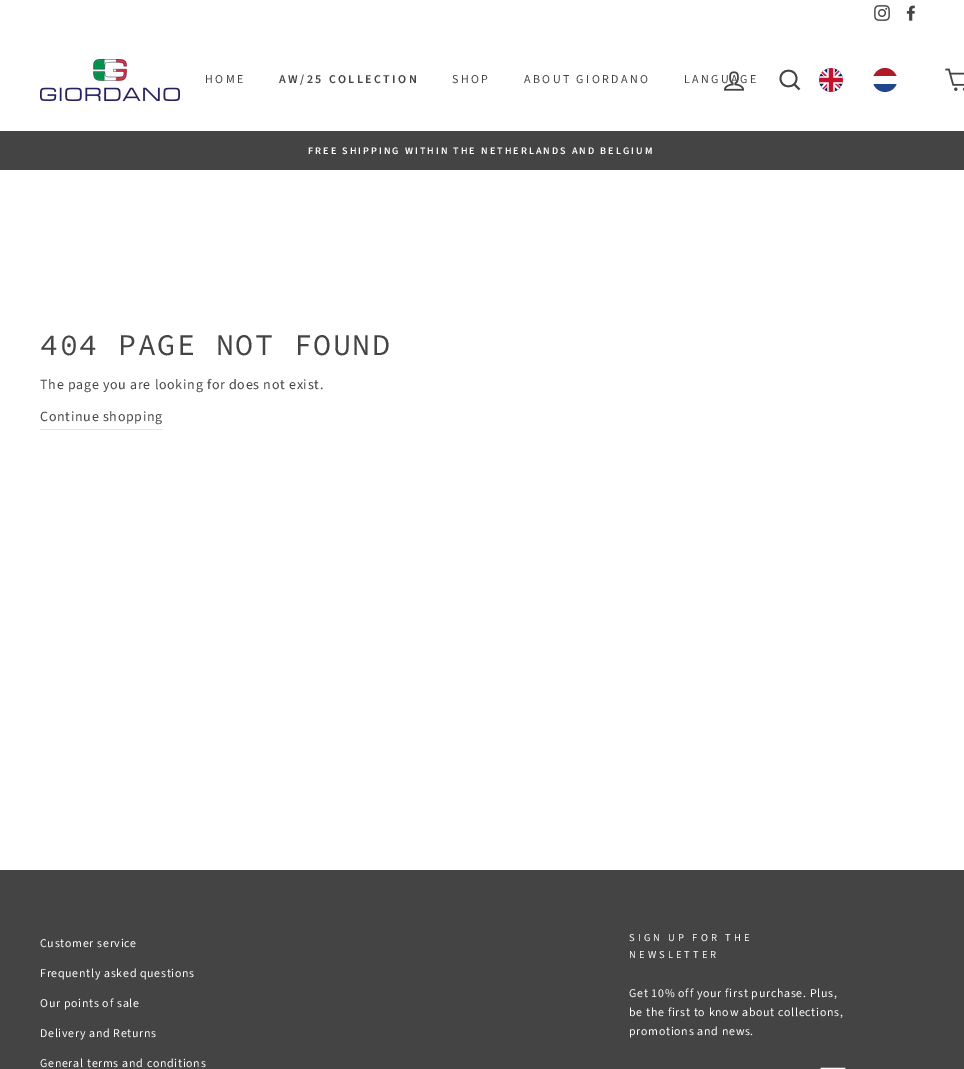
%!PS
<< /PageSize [964 1069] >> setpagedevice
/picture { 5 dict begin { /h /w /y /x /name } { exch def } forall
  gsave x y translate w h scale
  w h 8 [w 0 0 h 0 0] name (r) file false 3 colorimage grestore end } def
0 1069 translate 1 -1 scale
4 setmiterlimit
1 setgray
0 0 964 1069 rectfill
(img1.rgb) 874 5 16 16 picture
(img2.rgb) 906 5 9 16 picture
(img3.rgb) 40 59 140 42 picture
/SourceSansPro-Regular [12 0 0 -12 0 0] selectfont
0.267 setgray
205 83 moveto 2.4 0 (HOME) ashow
/SourceSansPro-SemiBold [12 0 0 -12 0 0] selectfont
279 83 moveto 2.4 0 (AW/25 COLLECTION) ashow
/SourceSansPro-Regular [12 0 0 -12 0 0] selectfont
452 83 moveto 2.4 0 (SHOP) ashow
524 83 moveto 2.4 0 (ABOUT GIORDANO) ashow
(img4.rgb) 723 71 22 20 picture
684 83 moveto 2.4 0 (LANGUAGE) ashow
1.8 setlinewidth
newpath 796.5 78.5 moveto 796.5 89 780.5 89 780.5 78.5 curveto 780.5 68 796.5 68 796.5 78.5 curveto closepath 799.5 89.5 moveto 794.5 84.5 lineto stroke
(img5.rgb) 819 68 24 24 picture
0.682 0.11 0.157 setrgbcolor
newpath 885 68 moveto 890 68 894.5 71.5 896.5 76 curveto 873.5 76 lineto 875.5 71.5 880 68 885 68 curveto closepath fill
0.129 0.275 0.545 setrgbcolor
newpath 896.5 84 moveto 892.5 94.5 877.5 94.5 873.5 84 curveto closepath fill
(img6.rgb) 945 68 19 23 picture
0.267 setgray
0 131 964 39 rectfill
/SourceSansPro-SemiBold [10.1 0 0 -10.1 0 0] selectfont
1 setgray
308 154 moveto 2 0 (FREE SHIPPING WITHIN THE NETHERLANDS AND BELGIUM) ashow
/SourceCodePro-Regular [30 0 0 -30 0 0] selectfont
0.267 setgray
40 355 moveto 1.5 0 (404 PAGE NOT FOUND) ashow
/SourceSansPro-Regular [14 0 0 -14 0 0] selectfont
40 389 moveto 0.7 0 (The page you are looking for does not exist.) ashow
0.89 setgray
40 429 123 1 rectfill
0.267 setgray
40 421 moveto 0.7 0 (Continue shopping) ashow
0 870 964 199 rectfill
/SourceSansPro-Regular [11.9 0 0 -11.9 0 0] selectfont
1 setgray
40 947 moveto 0.7 0 (Customer service) ashow
40 977 moveto 0.7 0 (Frequently asked questions) ashow
40 1007 moveto 0.7 0 (Our points of sale) ashow
40 1037 moveto 0.7 0 (Delivery and Returns) ashow
40 1067 moveto 0.7 0 (General terms and conditions) ashow
/SourceSansPro-Regular [10.5 0 0 -10.5 0 0] selectfont
629 941 moveto 3.1 0 (SIGN UP FOR THE) ashow
629 958 moveto 3.1 0 (NEWSLETTER) ashow
/SourceSansPro-Regular [11.9 0 0 -11.9 0 0] selectfont
629 997 moveto 0.7 0 (Get 10% off your first purchase. Plus,) ashow
629 1016 moveto 0.7 0 (be the first to know about collections,) ashow
629 1035 moveto 0.7 0 (promotions and news.) ashow
(img7.rgb) 820 1067 26 2 picture
showpage
